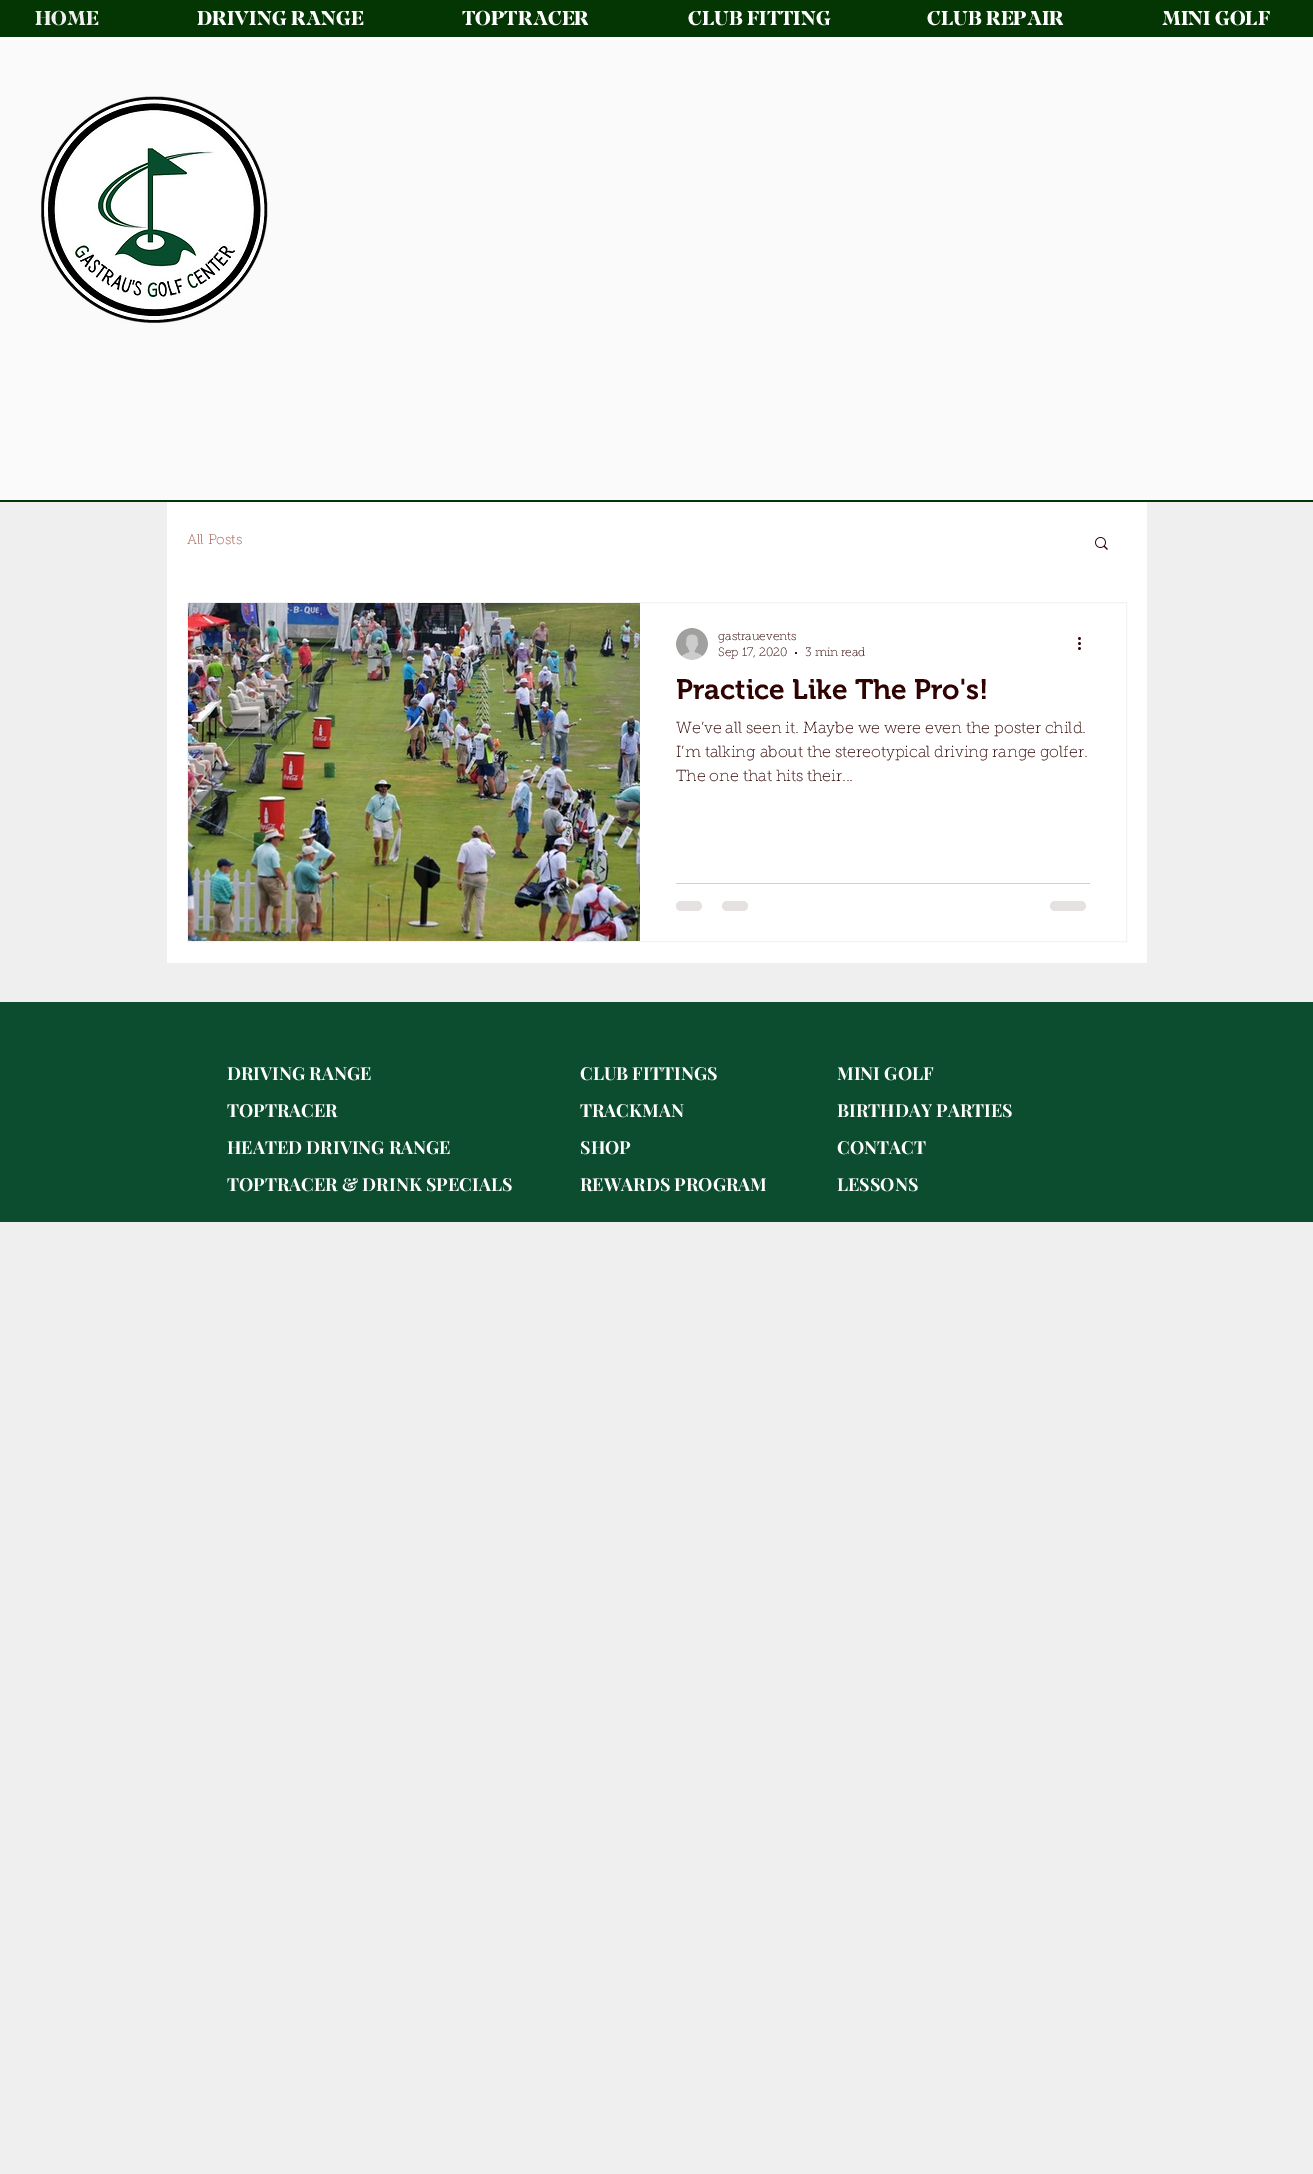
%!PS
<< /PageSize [1313 2174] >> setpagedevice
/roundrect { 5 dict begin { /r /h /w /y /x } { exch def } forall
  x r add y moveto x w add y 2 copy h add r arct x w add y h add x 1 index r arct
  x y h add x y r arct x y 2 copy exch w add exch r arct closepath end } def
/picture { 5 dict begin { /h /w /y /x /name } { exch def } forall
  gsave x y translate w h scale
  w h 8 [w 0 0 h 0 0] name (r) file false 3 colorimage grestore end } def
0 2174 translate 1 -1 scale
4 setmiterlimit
0.937 setgray
0 0 1313 2174 rectfill
0.016 0.212 0.012 setrgbcolor
0 0 1313 502 rectfill
/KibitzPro-Bold [20 0 0 -20 0 0] selectfont
0.937 setgray
35 25 moveto (HOME) show
1 setgray
197 25 moveto (DRIVING RANGE) show
462 25 moveto (TOPTRACER) show
688 25 moveto (CLUB FITTING) show
927 25 moveto (CLUB REPAIR) show
1162 25 moveto (MINI GOLF) show
0 37 1313 3 rectfill
0.98 setgray
0 40 1313 460 rectfill
(img1.rgb) 41 96 227 227 picture
1 setgray
167 502 980 461 rectfill
/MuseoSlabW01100-Thin [14 0 0 -14 0 0] selectfont
0.647 0.365 0.314 setrgbcolor
187 544 moveto (All Posts) show
(img2.rgb) 1095 537 13 13 picture
0.953 setgray
187.5 602.5 939 339 rectstroke
(img3.rgb) 188 603 452 338 picture
(img4.rgb) 676 628 32 32 picture
/MuseoSlabW01100-Thin [12 0 0 -12 0 0] selectfont
0.188 0.012 0.012 setrgbcolor
718 640 moveto (gastrauevents) show
718 656 moveto (Sep 17, 2020) show
newpath 796 653 1 0 360 arc closepath fill
805 656 moveto (3 min read) show
(img5.rgb) 1078 637 3 13 picture
/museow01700-SemiBold [28 0 0 -28 0 0] selectfont
676 699 moveto (Practice Like The Pro's!) show
/MuseoSlabW01100-Thin [16 0 0 -16 0 0] selectfont
676 733 moveto (We’ve all seen it. Maybe we were even the poster child.) show
676 757 moveto (I’m talking about the stereotypical driving range golfer.) show
676 781 moveto (The one that hits their...) show
0.839 0.804 0.804 setrgbcolor
676 883 414 1 rectfill
0.902 0.882 0.882 setrgbcolor
676 901 26 10 5 roundrect fill
722 901 26 10 5 roundrect fill
1050 901 36 10 5 roundrect fill
0.047 0.302 0.188 setrgbcolor
0 1002 1313 220 rectfill
/PlayfairDisplay-Bold [18 0 0 -18 0 0] selectfont
1 setgray
227 1080 moveto (DRIVING RANGE) show
227 1117 moveto (TOPTRACER) show
227 1154 moveto (HEATED DRIVING RANGE) show
227 1191 moveto (TOPTRACER & DRINK SPECIALS) show
580 1080 moveto (CLUB FITTINGS) show
580 1117 moveto (TRACKMAN) show
580 1154 moveto (SHOP) show
580 1191 moveto (REWARDS PROGRAM) show
837 1080 moveto (MINI GOLF) show
837 1117 moveto (BIRTHDAY PARTIES) show
837 1154 moveto (CONTACT) show
837 1191 moveto (LESSONS) show
showpage
